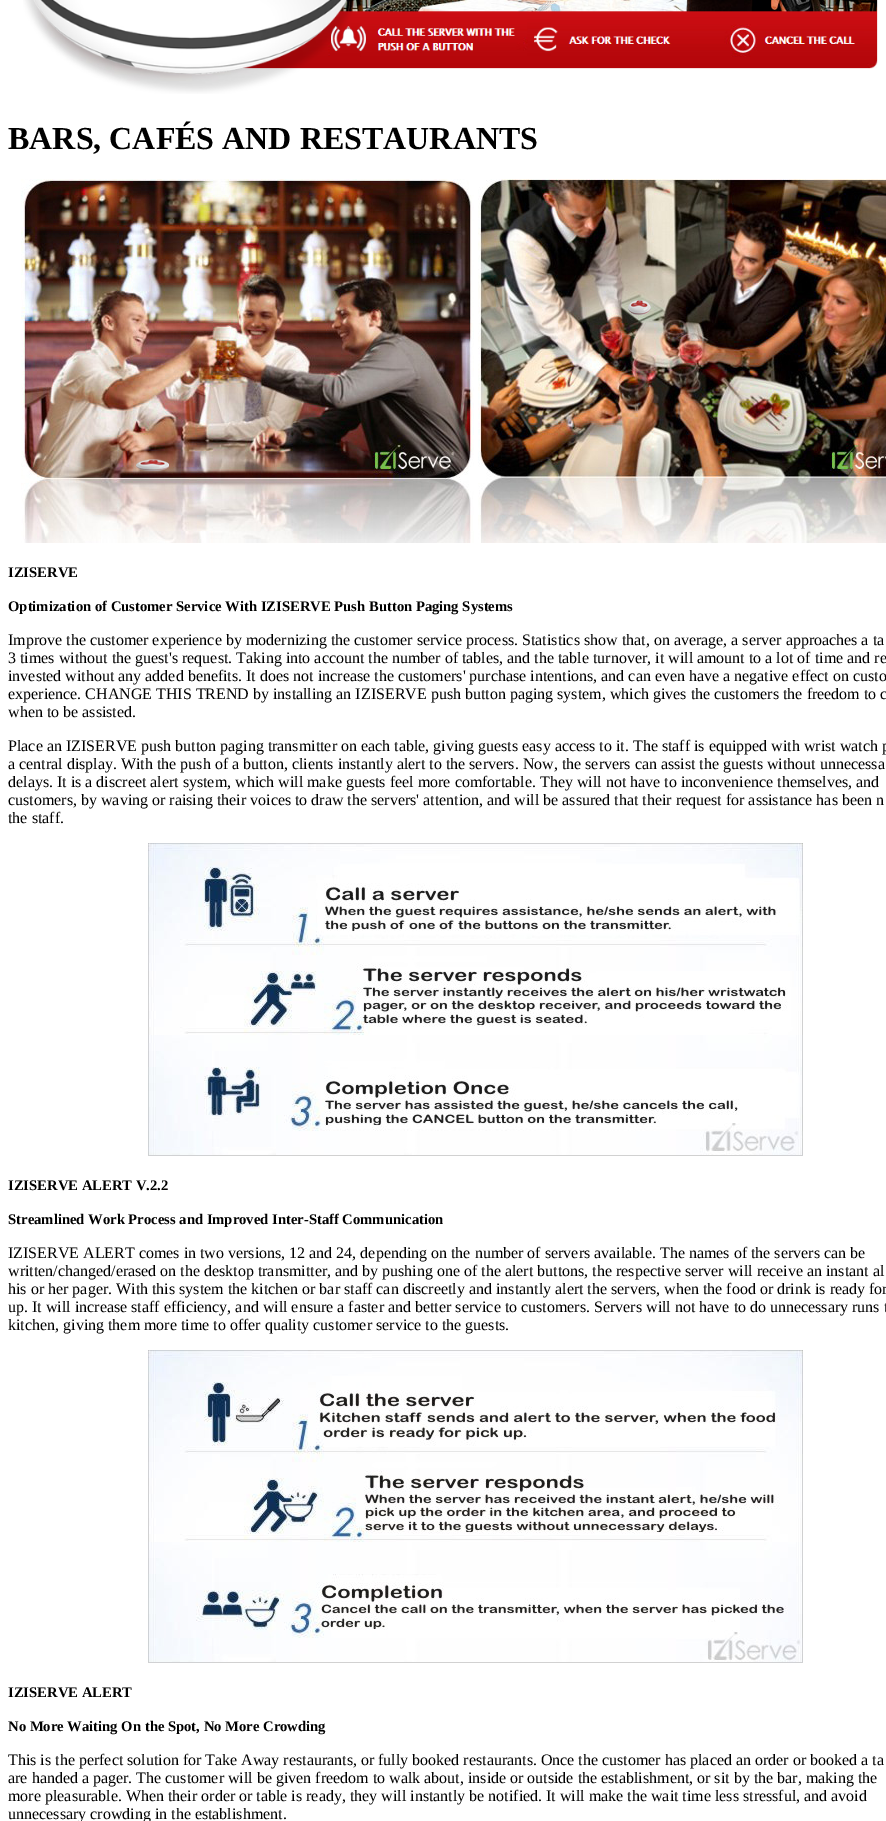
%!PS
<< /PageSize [886 1821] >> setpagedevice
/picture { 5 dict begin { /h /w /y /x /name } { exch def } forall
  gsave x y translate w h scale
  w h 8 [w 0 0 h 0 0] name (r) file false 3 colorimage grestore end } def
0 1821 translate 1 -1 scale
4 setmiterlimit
1 setgray
0 0 886 1821 rectfill
(img1.rgb) 23 0 855 94 picture
/LiberationSerif-Bold [32 0 0 -32 0 0] selectfont
0 setgray
8 149 moveto (BARS, CAFÉS AND RESTAURANTS) show
(img2.rgb) 21 179 453 364 picture
(img3.rgb) 478 179 408 364 picture
/LiberationSerif-Bold [14.65 0 0 -14.65 0 0] selectfont
8 577 moveto (IZISERVE) show
8 611 moveto (Optimization of Customer Service With IZISERVE Push Button Paging Systems) show
/LiberationSerif-Regular [16 0 0 -16 0 0] selectfont
8 645 moveto (Improve the customer experience by modernizing the customer service process. Statistics show that, on average, a server approaches a ta) show
8 663 moveto (3 times without the guest's request. Taking into account the number of tables, and the table turnover, it will amount to a lot of time and re) show
8 681 moveto (invested without any added benefits. It does not increase the customers' purchase intentions, and can even have a negative effect on custo) show
8 699 moveto (experience. CHANGE THIS TREND by installing an IZISERVE push button paging system, which gives the customers the freedom to c) show
8 717 moveto (when to be assisted.) show
8 751 moveto (Place an IZISERVE push button paging transmitter on each table, giving guests easy access to it. The staff is equipped with wrist watch p) show
8 769 moveto (a central display. With the push of a button, clients instantly alert to the servers. Now, the servers can assist the guests without unnecessa) show
8 787 moveto (delays. It is a discreet alert system, which will make guests feel more comfortable. They will not have to inconvenience themselves, and) show
8 805 moveto (customers, by waving or raising their voices to draw the servers' attention, and will be assured that their request for assistance has been n) show
8 823 moveto (the staff.) show
(img4.rgb) 148 843 655 313 picture
/LiberationSerif-Bold [14.65 0 0 -14.65 0 0] selectfont
8 1190 moveto (IZISERVE ALERT V.2.2) show
8 1224 moveto (Streamlined Work Process and Improved Inter-Staff Communication) show
/LiberationSerif-Regular [16 0 0 -16 0 0] selectfont
8 1258 moveto (IZISERVE ALERT comes in two versions, 12 and 24, depending on the number of servers available. The names of the servers can be) show
8 1276 moveto (written/changed/erased on the desktop transmitter, and by pushing one of the alert buttons, the respective server will receive an instant al) show
8 1294 moveto (his or her pager. With this system the kitchen or bar staff can discreetly and instantly alert the servers, when the food or drink is ready for) show
8 1312 moveto (up. It will increase staff efficiency, and will ensure a faster and better service to customers. Servers will not have to do unnecessary runs t) show
8 1330 moveto (kitchen, giving them more time to offer quality customer service to the guests.) show
(img5.rgb) 148 1350 655 313 picture
/LiberationSerif-Bold [14.65 0 0 -14.65 0 0] selectfont
8 1697 moveto (IZISERVE ALERT) show
8 1731 moveto (No More Waiting On the Spot, No More Crowding) show
/LiberationSerif-Regular [16 0 0 -16 0 0] selectfont
8 1765 moveto (This is the perfect solution for Take Away restaurants, or fully booked restaurants. Once the customer has placed an order or booked a ta) show
8 1783 moveto (are handed a pager. The customer will be given freedom to walk about, inside or outside the establishment, or sit by the bar, making the) show
8 1801 moveto (more pleasurable. When their order or table is ready, they will instantly be notified. It will make the wait time less stressful, and avoid) show
8 1819 moveto (unnecessary crowding in the establishment.) show
showpage
